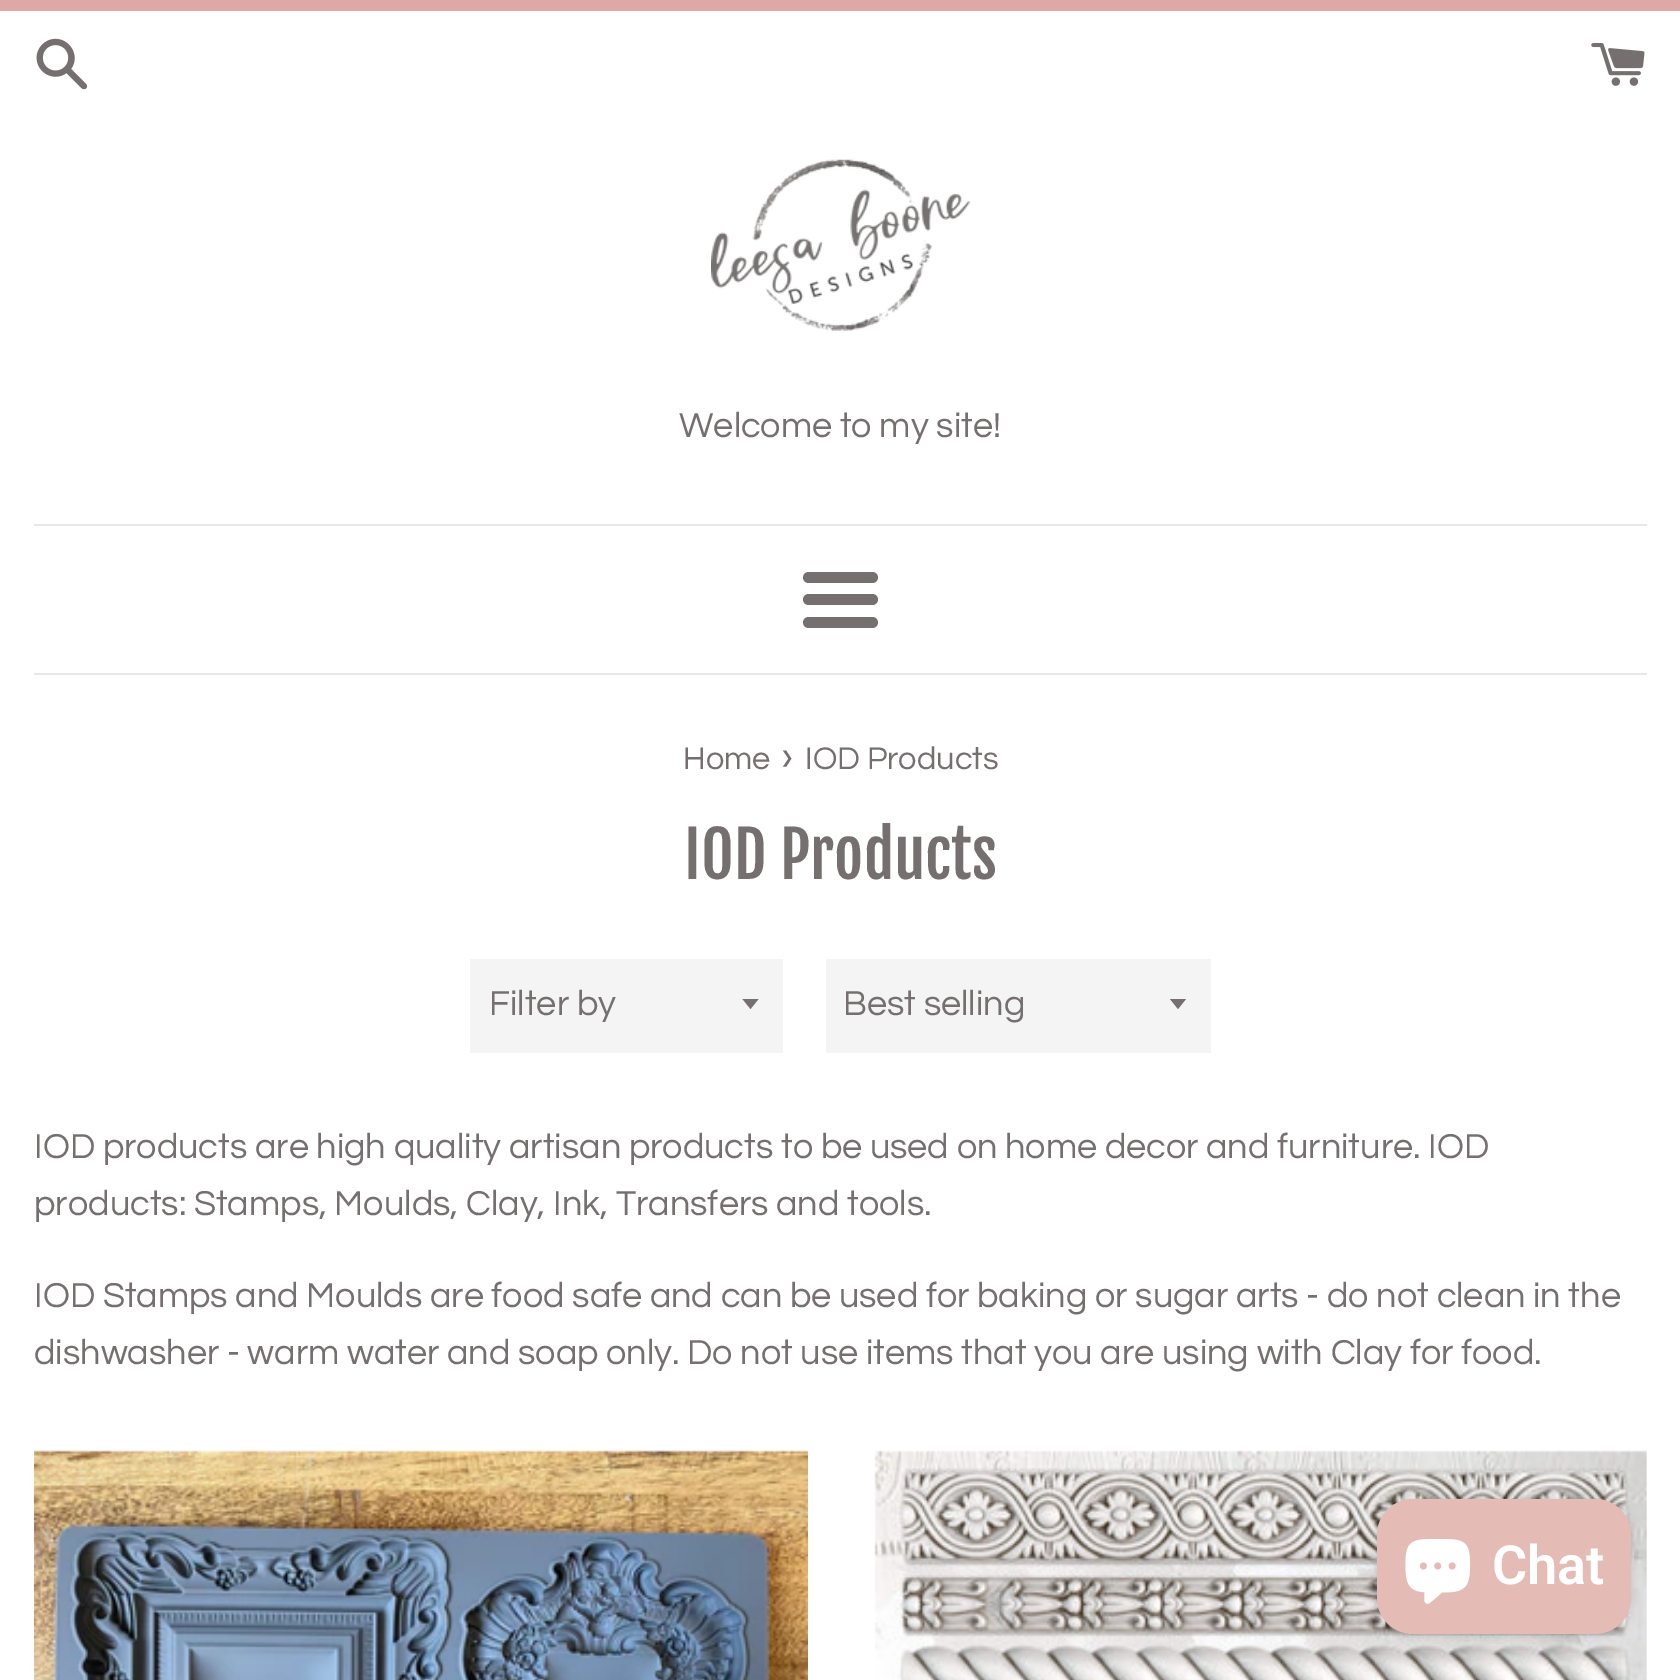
%!PS
<< /PageSize [1680 1680] /PageUsesTransparency true >> setpagedevice
/alpha { dup .setfillconstantalpha .setstrokeconstantalpha } def
/roundrect { 5 dict begin { /r /h /w /y /x } { exch def } forall
  x r add y moveto x w add y 2 copy h add r arct x w add y h add x 1 index r arct
  x y h add x y r arct x y 2 copy exch w add exch r arct closepath end } def
/shadow { 12 dict begin { /a /b /q /h /w /y /x } { exch def } forall gsave /was 0 def
  9 -2 -9 { dup b mul 4 div /e exch def 1 sub .425 mul 2.718 exch exp 1 add a .99 .min exch div /now exch def
    1 1 now sub 1 was sub div sub alpha /was now def
    w h .min e 2 mul add 0 gt { x e sub y e sub w e 2 mul add h e 2 mul add
      q e add b .6 mul add w h .min 2 div e add .min 0 .max roundrect fill } if } for grestore end } def
/picture { 5 dict begin { /h /w /y /x /name } { exch def } forall
  gsave x y translate w h scale
  w h 8 [w 0 0 h 0 0] name (r) file false 3 colorimage grestore end } def
0 .pushpdf14devicefilter
0 1680 translate 1 -1 scale
4 setmiterlimit
1 setgray
0 0 1680 1680 rectfill
0.871 0.663 0.643 setrgbcolor
0 0 1680 11 rectfill
(img1.rgb) 36 38 52 52 picture
(img2.rgb) 1591 43 54 43 picture
(img3.rgb) 711 159 259 172 picture
/Questrial-Regular [36 0 0 -36 0 0] selectfont
0.459 0.439 0.435 setrgbcolor
679 437 moveto (Welcome to my site!) show
0.91 setgray
34 524 1613 2 rectfill
0.459 0.439 0.435 setrgbcolor
803 572 75 11 5.5 roundrect fill
803 594 75 11 5.5 roundrect fill
803 617 75 11 5.5 roundrect fill
0.91 setgray
34 673 1613 2 rectfill
/Questrial-Regular [32.5 0 0 -32.5 0 0] selectfont
0.459 0.439 0.435 setrgbcolor
683 769 moveto (Home) show
/Questrial-Regular [40 0 0 -40 0 0] selectfont
781 769 moveto (›) show
/Questrial-Regular [32.5 0 0 -32.5 0 0] selectfont
805 769 moveto (IOD Products) show
/FjallaOne-Regular [63 0 0 -63 0 0] selectfont
684 879 moveto (IOD Products) show
0.957 setgray
470 959 313 94 rectfill
0.459 0.439 0.435 setrgbcolor
newpath 742.5 999 moveto 750.5 1009 lineto 758.5 999 lineto closepath fill
/Questrial-Regular [36 0 0 -36 0 0] selectfont
489 1015 moveto (Filter by) show
0.957 setgray
826 959 385 94 rectfill
0.459 0.439 0.435 setrgbcolor
newpath 1170 999 moveto 1178 1009 lineto 1186 999 lineto closepath fill
843 1015 moveto (Best selling) show
34 1158 moveto (IOD products are high quality artisan products to be used on home decor and furniture. IOD) show
34 1215 moveto (products: Stamps, Moulds, Clay, Ink, Transfers and tools.) show
34 1307 moveto (IOD Stamps and Moulds are food safe and can be used for baking or sugar arts - do not clean in the) show
34 1364 moveto (dishwasher - warm water and soap only. Do not use items that you are using with Clay for food.) show
(img4.rgb) 34 1450 774 230 picture
(img5.rgb) 874 1450 773 230 picture
0 setgray
1377 1499 254 135 36 5.5 0.15 shadow
0.894 0.737 0.71 setrgbcolor
1377 1499 254 135 36 roundrect fill
(img6.rgb) 1405 1539 66 65 picture
/Roboto-SemiBold [54 0 0 -54 0 0] selectfont
1 setgray
1492 1584 moveto (Chat) show
.poppdf14devicefilter showpage
